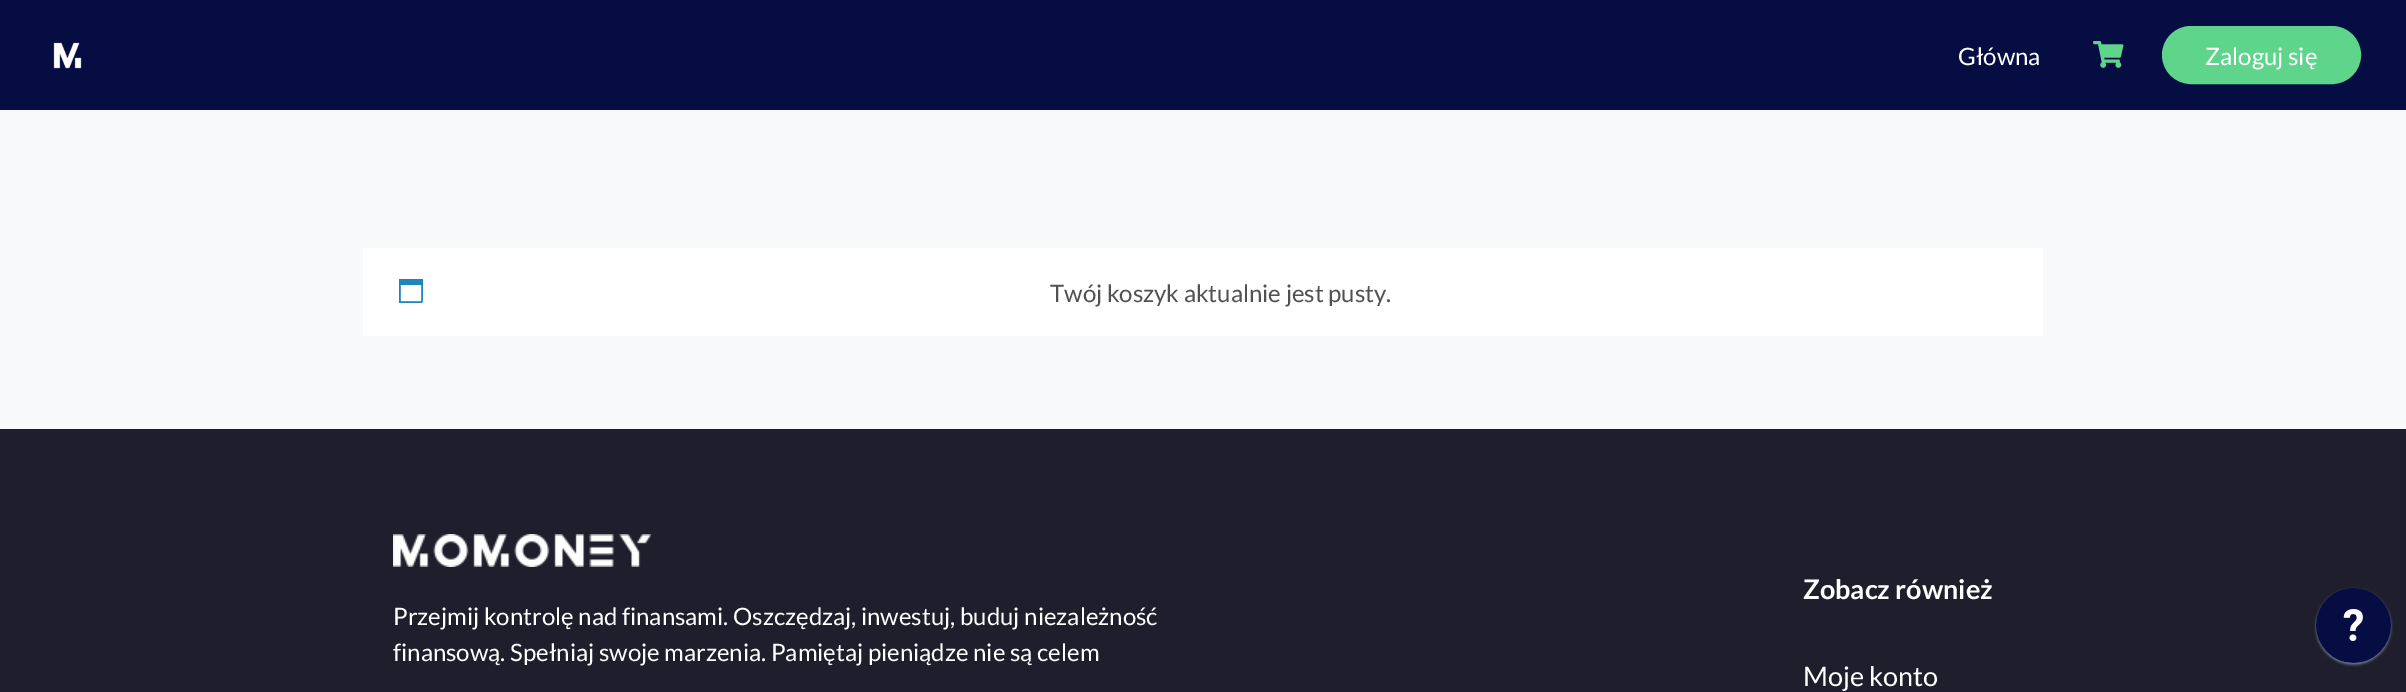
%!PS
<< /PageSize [2406 692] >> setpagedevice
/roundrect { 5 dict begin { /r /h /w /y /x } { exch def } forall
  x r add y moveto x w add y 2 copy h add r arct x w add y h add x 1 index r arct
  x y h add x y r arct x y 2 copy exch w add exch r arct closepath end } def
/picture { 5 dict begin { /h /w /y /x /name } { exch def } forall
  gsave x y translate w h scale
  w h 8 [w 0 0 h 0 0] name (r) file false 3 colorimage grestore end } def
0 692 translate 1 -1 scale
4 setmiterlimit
0.969 0.976 0.98 setrgbcolor
0 0 2406 692 rectfill
0.02 0.051 0.259 setrgbcolor
0 0 2406 110 rectfill
(img1.rgb) 53 42 29 27 picture
/Lato-Regular [24 0 0 -24 0 0] selectfont
1 setgray
1958 65 moveto (Główna) show
(img2.rgb) 2093 41 31 27 picture
0.373 0.835 0.549 setrgbcolor
2163 27 197 56 28 roundrect gsave fill grestore
2 setlinewidth
stroke
1 setgray
2205 65 moveto (Zaloguj się) show
363 248 1680 88 rectfill
(img3.rgb) 399 279 24 24 picture
0.318 setgray
1050 302 moveto (Twój koszyk aktualnie jest pusty.) show
0.118 0.118 0.173 setrgbcolor
0 429 2406 263 rectfill
(img4.rgb) 393 534 258 33 picture
1 setgray
393 625 moveto (Przejmij kontrolę nad finansami. Oszczędzaj, inwestuj, buduj niezależność) show
393 661 moveto (finansową. Spełniaj swoje marzenia. Pamiętaj pieniądze nie są celem) show
/Lato-Bold [27 0 0 -27 0 0] selectfont
1803 599 moveto (Zobacz również) show
/Lato-Regular [27 0 0 -27 0 0] selectfont
1803 686 moveto (Moje konto) show
(img5.rgb) 2314 587 79 80 picture
showpage
